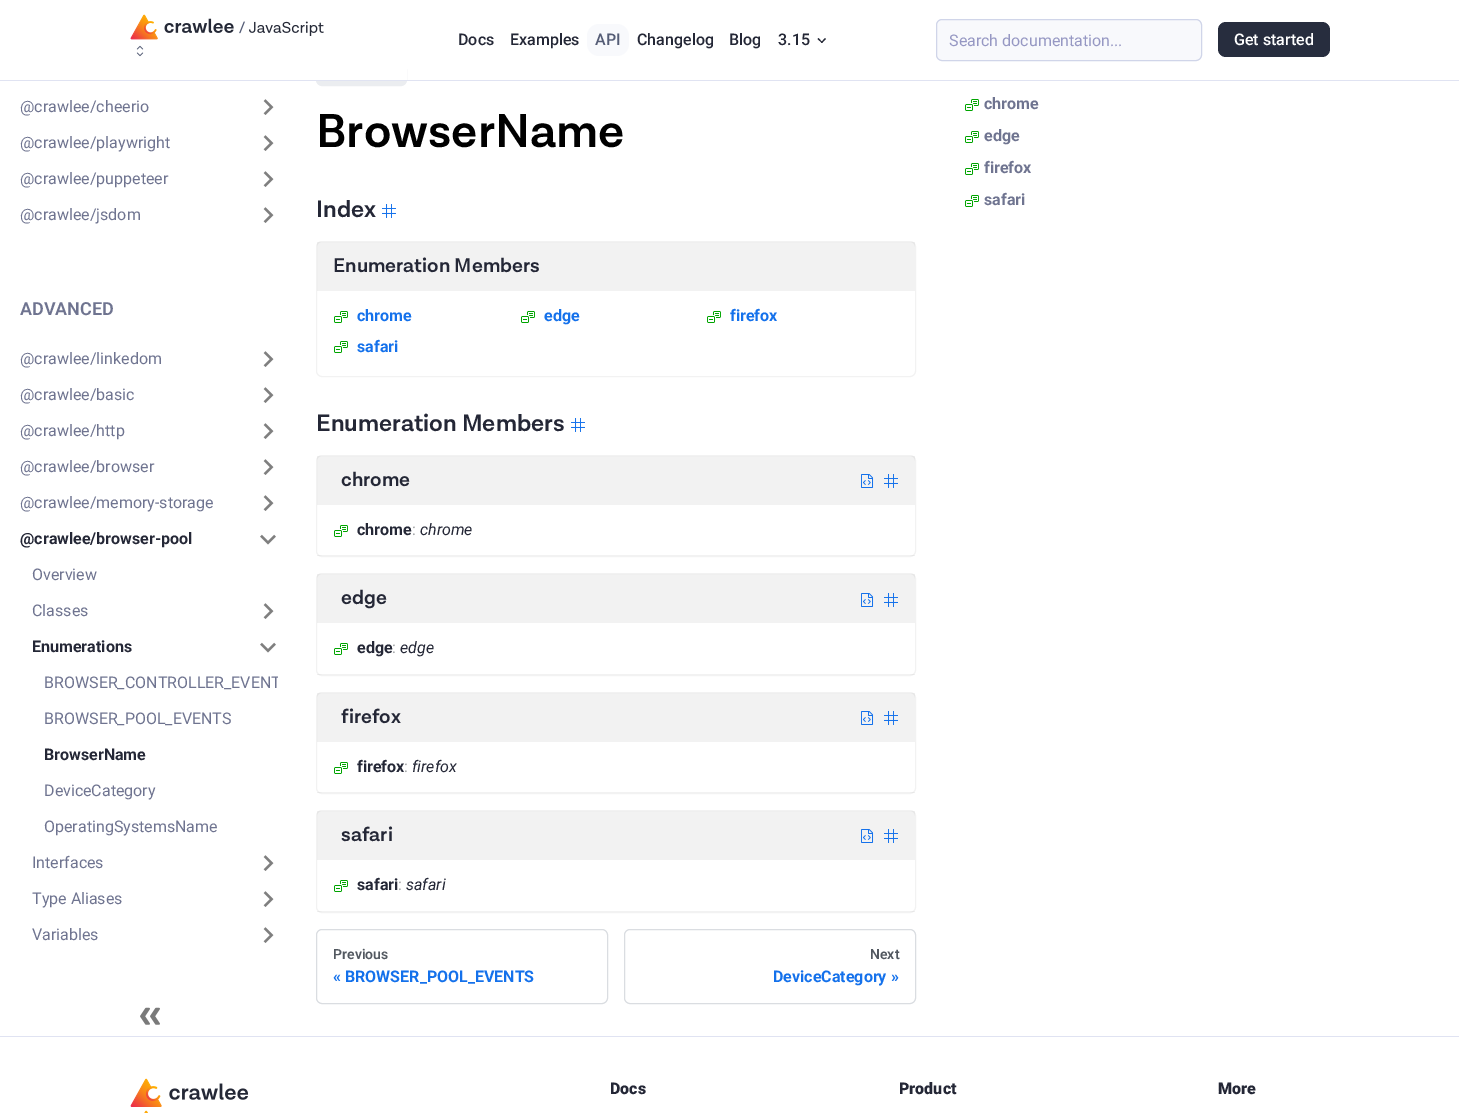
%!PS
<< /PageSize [1459 1113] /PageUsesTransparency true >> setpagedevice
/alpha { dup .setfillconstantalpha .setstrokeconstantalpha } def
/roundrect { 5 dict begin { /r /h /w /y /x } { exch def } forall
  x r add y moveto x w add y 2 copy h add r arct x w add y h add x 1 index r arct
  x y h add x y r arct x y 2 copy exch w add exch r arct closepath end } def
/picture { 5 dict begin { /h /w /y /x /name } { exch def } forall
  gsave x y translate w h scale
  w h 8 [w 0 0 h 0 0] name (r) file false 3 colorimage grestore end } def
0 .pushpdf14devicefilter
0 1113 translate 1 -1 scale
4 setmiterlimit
1 setgray
0 0 1459 1113 rectfill
0.922 0.929 0.941 setrgbcolor
316.5 64.5 90 21 5.5 roundrect gsave fill grestore
stroke
1 setgray
316 64 91 16 rectfill
0.878 0.89 0.949 setrgbcolor
0 80 1459 1 rectfill
(img1.rgb) 130 14 194 26 picture
(img2.rgb) 136 45 8 12 picture
/Roboto-Medium [16 0 0 -16 0 0] selectfont
0.141 0.153 0.212 setrgbcolor
458 45 moveto (Docs) show
510 45 moveto (Examples) show
0.973 0.976 0.988 setrgbcolor
587 24 42 32 12 roundrect fill
0.333 0.365 0.463 setrgbcolor
595 45 moveto (API) show
0.141 0.153 0.212 setrgbcolor
637 45 moveto (Changelog) show
729 45 moveto (Blog) show
778 45 moveto (3.15) show
0.141 0.157 0.212 setrgbcolor
newpath 826 39 moveto 822 43 lineto 821 42.5 lineto 825 38 lineto closepath fill
newpath 822.5 42.5 moveto 822 43 lineto 817.5 39 lineto 818.5 38 lineto closepath fill
0.973 0.976 0.988 setrgbcolor
936.5 19.5 265 41 5.5 roundrect gsave fill grestore
0.816 0.835 0.914 setrgbcolor
stroke
/Roboto-Regular [16 0 0 -16 0 0] selectfont
0.588 0.596 0.765 setrgbcolor
949 46 moveto (Search documentation...) show
0.153 0.176 0.243 setrgbcolor
1218 22 112 35 8 roundrect fill
/Roboto-Medium [16 0 0 -16 0 0] selectfont
1 setgray
1234 45 moveto (Get started) show
/Roboto-Regular [16 0 0 -16 0 0] selectfont
0.435 0.455 0.565 setrgbcolor
20 112 moveto (@crawlee/cheerio) show
(img3.rgb) 263 99 11 16 picture
20 148 moveto (@crawlee/playwright) show
(img3.rgb) 263 135 11 16 picture
20 184 moveto (@crawlee/puppeteer) show
(img3.rgb) 263 171 11 16 picture
20 220 moveto (@crawlee/jsdom) show
(img3.rgb) 263 207 11 16 picture
/Roboto-SemiBold [18 0 0 -18 0 0] selectfont
20 315 moveto (ADVANCED) show
/Roboto-Regular [16 0 0 -16 0 0] selectfont
20 364 moveto (@crawlee/linkedom) show
(img3.rgb) 263 351 11 16 picture
20 400 moveto (@crawlee/basic) show
(img3.rgb) 263 387 11 16 picture
20 436 moveto (@crawlee/http) show
(img3.rgb) 263 423 11 16 picture
20 472 moveto (@crawlee/browser) show
(img3.rgb) 263 459 11 16 picture
20 508 moveto (@crawlee/memory-storage) show
(img3.rgb) 263 495 11 16 picture
/Roboto-Bold [16 0 0 -16 0 0] selectfont
0.141 0.153 0.212 setrgbcolor
20 544 moveto (@crawlee/browser-pool) show
(img4.rgb) 260 534 16 11 picture
/Roboto-Regular [16 0 0 -16 0 0] selectfont
0.435 0.455 0.565 setrgbcolor
32 580 moveto (Overview) show
32 616 moveto (Classes) show
(img3.rgb) 263 603 11 16 picture
/Roboto-Bold [16 0 0 -16 0 0] selectfont
0.141 0.153 0.212 setrgbcolor
32 652 moveto (Enumerations) show
(img4.rgb) 260 642 16 11 picture
gsave
44 673 234 20 rectclip
/Roboto-Regular [16 0 0 -16 0 0] selectfont
0.435 0.455 0.565 setrgbcolor
44 688 moveto (BROWSER_CONTROLLER_EVENT) show
grestore
/Roboto-Regular [16 0 0 -16 0 0] selectfont
0.435 0.455 0.565 setrgbcolor
44 724 moveto (BROWSER_POOL_EVENTS) show
/Roboto-Bold [16 0 0 -16 0 0] selectfont
0.141 0.153 0.212 setrgbcolor
44 760 moveto (BrowserName) show
/Roboto-Regular [16 0 0 -16 0 0] selectfont
0.435 0.455 0.565 setrgbcolor
44 796 moveto (DeviceCategory) show
44 832 moveto (OperatingSystemsName) show
32 868 moveto (Interfaces) show
(img3.rgb) 263 855 11 16 picture
32 904 moveto (Type Aliases) show
(img3.rgb) 263 891 11 16 picture
32 940 moveto (Variables) show
(img3.rgb) 263 927 11 16 picture
(img5.rgb) 140 1007 20 18 picture
/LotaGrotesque-SemiBold [48 0 0 -48 0 0] selectfont
0 setgray
316 147 moveto (BrowserName) show
/LotaGrotesque-SemiBold [24 0 0 -24 0 0] selectfont
0.141 0.153 0.212 setrgbcolor
316 217 moveto (Index) show
(img6.rgb) 382 204 14 14 picture
0.949 setgray
316.5 241.5 599 135 5.5 roundrect stroke
0.05 alpha
0 setgray
317 242 598 49 rectfill
/LotaGrotesque-SemiBold [20 0 0 -20 0 0] selectfont
1 alpha
0.141 0.153 0.212 setrgbcolor
333 272 moveto (Enumeration Members) show
(img7.rgb) 334 311 14 12 picture
/Roboto-Bold [16 0 0 -16 0 0] selectfont
0.078 0.443 0.922 setrgbcolor
357 321 moveto (chrome) show
(img7.rgb) 521 311 14 12 picture
544 321 moveto (edge) show
(img7.rgb) 707 311 14 12 picture
730 321 moveto (firefox) show
(img7.rgb) 334 341 14 12 picture
357 352 moveto (safari) show
/LotaGrotesque-SemiBold [24 0 0 -24 0 0] selectfont
0.141 0.153 0.212 setrgbcolor
316 431 moveto (Enumeration Members) show
(img6.rgb) 571 418 14 14 picture
0.949 setgray
316.5 455.5 599 101 5.5 roundrect stroke
0.05 alpha
0 setgray
317 456 598 49 rectfill
/LotaGrotesque-SemiBold [20 0 0 -20 0 0] selectfont
1 alpha
0.141 0.153 0.212 setrgbcolor
341 486 moveto (chrome) show
(img8.rgb) 861 474 13 14 picture
(img9.rgb) 884 474 14 14 picture
0.05 alpha
0 setgray
317 555 598 1 rectfill
1 alpha
(img7.rgb) 334 525 14 12 picture
/Roboto-Bold [16 0 0 -16 0 0] selectfont
0.141 0.153 0.212 setrgbcolor
357 535 moveto (chrome) show
/Roboto-Regular [16 0 0 -16 0 0] selectfont
0.643 0.651 0.659 setrgbcolor
412 535 moveto (:) show
/Roboto-Italic [16 0 0 -16 0 0] selectfont
0.141 0.153 0.212 setrgbcolor
420 535 moveto (chrome) show
0.949 setgray
316.5 573.5 599 102 5.5 roundrect stroke
0.05 alpha
0 setgray
317 574 598 49 rectfill
/LotaGrotesque-SemiBold [20 0 0 -20 0 0] selectfont
1 alpha
0.141 0.153 0.212 setrgbcolor
341 604 moveto (edge) show
(img8.rgb) 861 593 13 14 picture
(img9.rgb) 884 593 14 14 picture
0.05 alpha
0 setgray
317 674 598 1 rectfill
1 alpha
(img7.rgb) 334 643 14 12 picture
/Roboto-Bold [16 0 0 -16 0 0] selectfont
0.141 0.153 0.212 setrgbcolor
357 653 moveto (edge) show
/Roboto-Regular [16 0 0 -16 0 0] selectfont
0.643 0.651 0.659 setrgbcolor
392 653 moveto (:) show
/Roboto-Italic [16 0 0 -16 0 0] selectfont
0.141 0.153 0.212 setrgbcolor
400 653 moveto (edge) show
0.949 setgray
316.5 692.5 599 101 5.5 roundrect stroke
0.05 alpha
0 setgray
317 693 598 49 rectfill
/LotaGrotesque-SemiBold [20 0 0 -20 0 0] selectfont
1 alpha
0.141 0.153 0.212 setrgbcolor
341 723 moveto (firefox) show
(img8.rgb) 861 711 13 14 picture
(img9.rgb) 884 711 14 14 picture
0.05 alpha
0 setgray
317 792 598 1 rectfill
1 alpha
(img7.rgb) 334 762 14 12 picture
/Roboto-Bold [16 0 0 -16 0 0] selectfont
0.141 0.153 0.212 setrgbcolor
357 772 moveto (firefox) show
/Roboto-Regular [16 0 0 -16 0 0] selectfont
0.643 0.651 0.659 setrgbcolor
404 772 moveto (:) show
/Roboto-Italic [16 0 0 -16 0 0] selectfont
0.141 0.153 0.212 setrgbcolor
412 772 moveto (firefox) show
0.949 setgray
316.5 810.5 599 102 5.5 roundrect stroke
0.05 alpha
0 setgray
317 811 598 49 rectfill
/LotaGrotesque-SemiBold [20 0 0 -20 0 0] selectfont
1 alpha
0.141 0.153 0.212 setrgbcolor
341 841 moveto (safari) show
(img8.rgb) 861 829 13 14 picture
(img9.rgb) 884 829 14 14 picture
0.05 alpha
0 setgray
317 911 598 1 rectfill
1 alpha
(img7.rgb) 334 880 14 12 picture
/Roboto-Bold [16 0 0 -16 0 0] selectfont
0.141 0.153 0.212 setrgbcolor
357 890 moveto (safari) show
/Roboto-Regular [16 0 0 -16 0 0] selectfont
0.643 0.651 0.659 setrgbcolor
398 890 moveto (:) show
/Roboto-Italic [16 0 0 -16 0 0] selectfont
0.141 0.153 0.212 setrgbcolor
406 890 moveto (safari) show
0.855 0.867 0.882 setrgbcolor
316.5 929.5 291 74 5.5 roundrect stroke
/Roboto-SemiBold [14 0 0 -14 0 0] selectfont
0.322 0.345 0.376 setrgbcolor
333 959 moveto (Previous) show
/Roboto-Bold [16 0 0 -16 0 0] selectfont
0.078 0.443 0.922 setrgbcolor
333 982 moveto (« BROWSER_POOL_EVENTS) show
0.855 0.867 0.882 setrgbcolor
624.5 929.5 291 74 5.5 roundrect stroke
/Roboto-SemiBold [14 0 0 -14 0 0] selectfont
0.322 0.345 0.376 setrgbcolor
870 959 moveto (Next) show
/Roboto-Bold [16 0 0 -16 0 0] selectfont
0.078 0.443 0.922 setrgbcolor
773 982 moveto (DeviceCategory ») show
(img7.rgb) 965 99 14 12 picture
0.435 0.455 0.565 setrgbcolor
984 109 moveto (chrome) show
(img7.rgb) 965 131 14 12 picture
984 141 moveto (edge) show
(img7.rgb) 965 163 14 12 picture
984 173 moveto (firefox) show
(img7.rgb) 965 195 14 12 picture
984 205 moveto (safari) show
0.878 0.89 0.949 setrgbcolor
0 1036 1459 1 rectfill
(img10.rgb) 130 1078 119 29 picture
(img11.rgb) 144 1110 4 3 picture
/Roboto-Black [16 0 0 -16 0 0] selectfont
0.141 0.153 0.212 setrgbcolor
610 1094 moveto (Docs) show
899 1094 moveto (Product) show
1218 1094 moveto (More) show
.poppdf14devicefilter showpage
